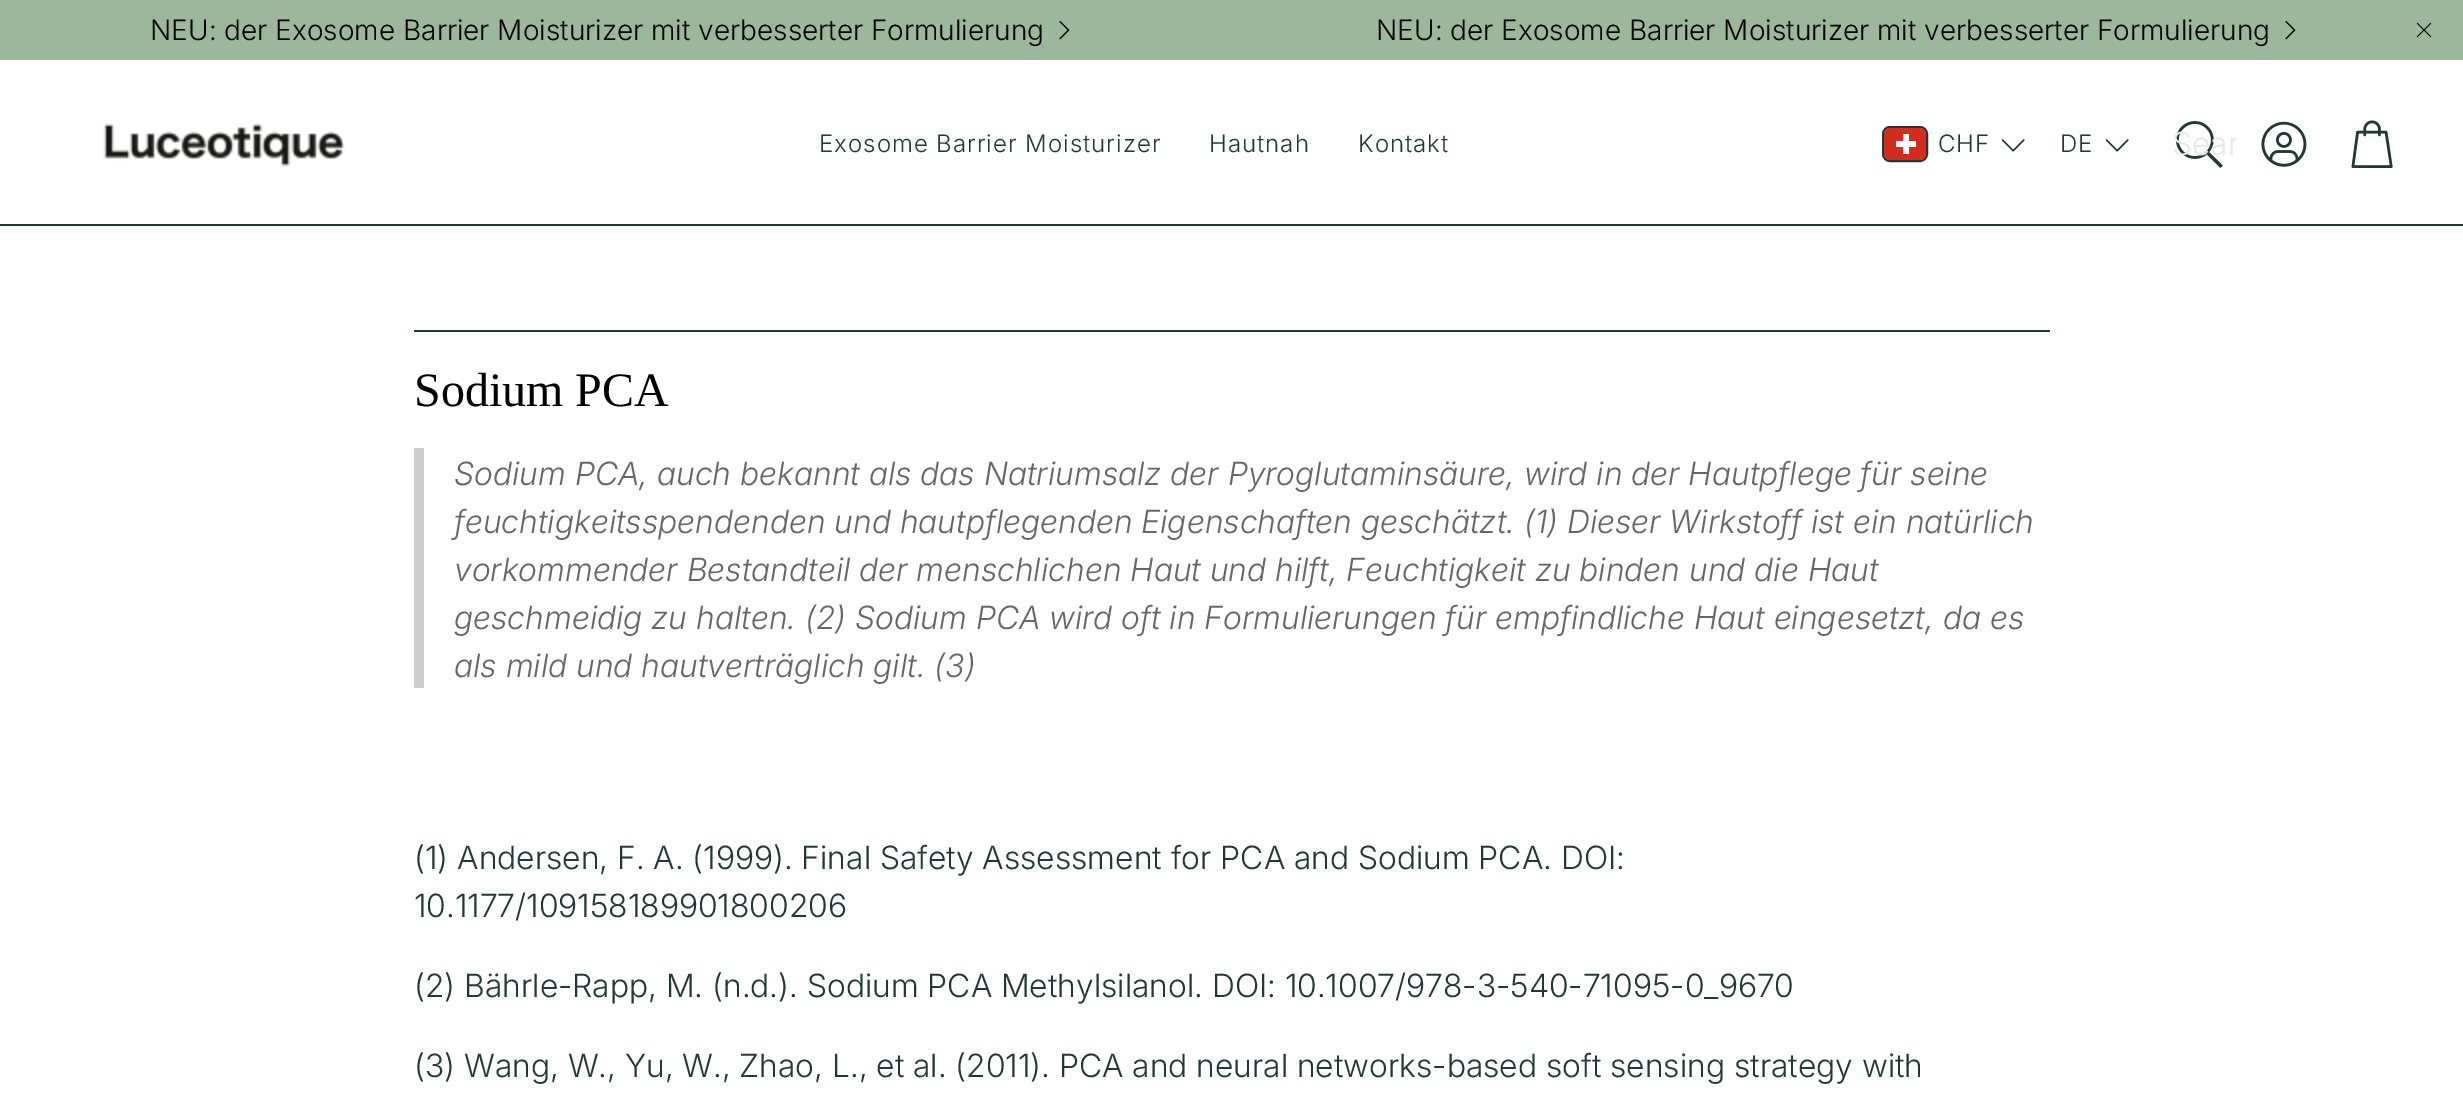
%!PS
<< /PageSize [2463 1113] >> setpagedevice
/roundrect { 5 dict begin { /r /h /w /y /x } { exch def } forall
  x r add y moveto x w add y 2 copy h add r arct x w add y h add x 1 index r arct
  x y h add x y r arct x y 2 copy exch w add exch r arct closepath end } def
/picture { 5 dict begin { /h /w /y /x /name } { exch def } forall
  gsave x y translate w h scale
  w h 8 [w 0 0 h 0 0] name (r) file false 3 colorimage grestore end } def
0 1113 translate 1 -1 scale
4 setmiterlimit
1 setgray
0 0 2463 1113 rectfill
0.608 0.725 0.604 setrgbcolor
0 0 2463 60 rectfill
/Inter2-Light [28 0 0 -28 0 0] selectfont
0 setgray
150 40 moveto (NEU: der Exosome Barrier Moisturizer mit verbesserter Formulierung) show
(img1.rgb) 1059 21 11 19 picture
1376 40 moveto (NEU: der Exosome Barrier Moisturizer mit verbesserter Formulierung) show
(img1.rgb) 2285 21 11 19 picture
(img2.rgb) 2416 22 16 16 picture
0.122 0.227 0.204 setrgbcolor
0 224 2463 2 rectfill
(img3.rgb) 103 123 242 44 picture
/Inter2-Light [24 0 0 -24 0 0] selectfont
819 152 moveto 1 0 (Exosome Barrier Moisturizer) ashow
1209 152 moveto 1 0 (Hautnah) ashow
1358 152 moveto 1 0 (Kontakt) ashow
2 setlinewidth
1883 127 44 34 7 roundrect stroke
0.835 0.169 0.118 setrgbcolor
1884 128 42 32 6 roundrect fill
1 setgray
1896 141 20 6 rectfill
1903 134 6 20 rectfill
0.122 0.227 0.204 setrgbcolor
1938 152 moveto 1 0 (CHF) ashow
(img4.rgb) 2001 139 24 13 picture
2060 152 moveto 1 0 (DE) ashow
(img4.rgb) 2105 139 24 13 picture
(img5.rgb) 2175 121 48 47 picture
gsave
2172 124 64 38 rectclip
/Inter-Light [32 0 0 -32 0 0] selectfont
0.902 0.914 0.91 setrgbcolor
2172 155 moveto (Sear) show
grestore
(img6.rgb) 2261 121 46 46 picture
(img7.rgb) 2351 120 42 48 picture
414 330 1636 2 rectfill
/LiberationSerif-Regular [48 0 0 -48 0 0] selectfont
0 setgray
414 406 moveto (Sodium PCA) show
0.8 setgray
414 448 10 240 rectfill
/Inter-LightItalic [32 0 0 -32 0 0] selectfont
0.4 setgray
454 485 moveto (Sodium PCA, auch bekannt als das Natriumsalz der Pyroglutaminsäure, wird in der Hautpflege für seine) show
454 533 moveto (feuchtigkeitsspendenden und hautpflegenden Eigenschaften geschätzt. \(1\) Dieser Wirkstoff ist ein natürlich) show
454 581 moveto (vorkommender Bestandteil der menschlichen Haut und hilft, Feuchtigkeit zu binden und die Haut) show
454 629 moveto (geschmeidig zu halten. \(2\) Sodium PCA wird oft in Formulierungen für empfindliche Haut eingesetzt, da es) show
454 677 moveto (als mild und hautverträglich gilt. \(3\)) show
/Inter-Light [32 0 0 -32 0 0] selectfont
0.122 0.227 0.204 setrgbcolor
414 869 moveto (\(1\) Andersen, F. A. \(1999\). Final Safety Assessment for PCA and Sodium PCA. DOI:) show
414 917 moveto (10.1177/109158189901800206) show
414 997 moveto (\(2\) Bährle-Rapp, M. \(n.d.\). Sodium PCA Methylsilanol. DOI: 10.1007/978-3-540-71095-0_9670) show
414 1077 moveto (\(3\) Wang, W., Yu, W., Zhao, L., et al. \(2011\). PCA and neural networks-based soft sensing strategy with) show
showpage
